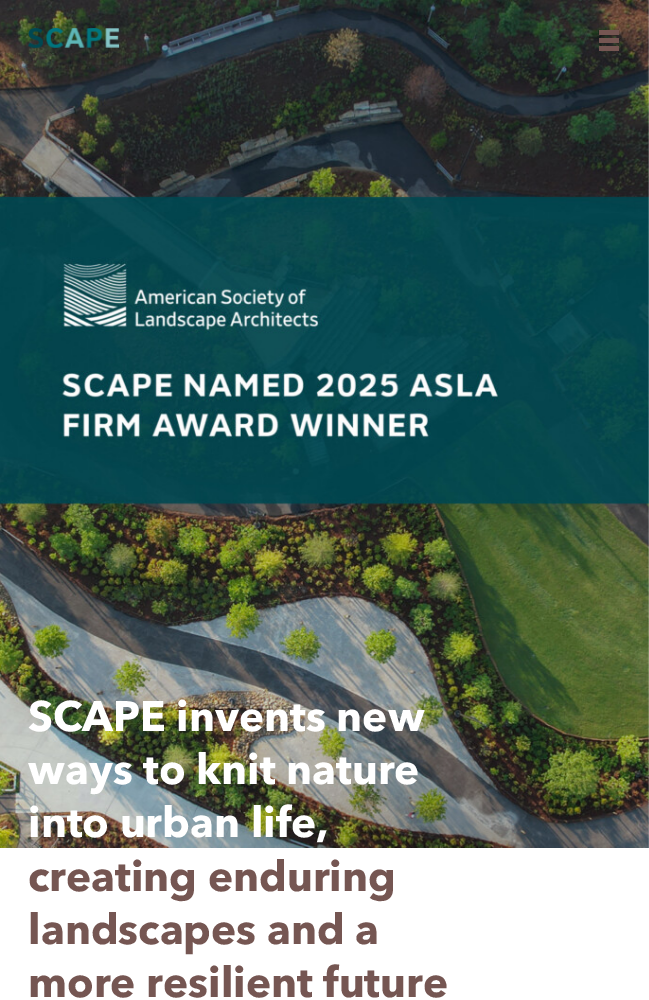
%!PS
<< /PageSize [649 1000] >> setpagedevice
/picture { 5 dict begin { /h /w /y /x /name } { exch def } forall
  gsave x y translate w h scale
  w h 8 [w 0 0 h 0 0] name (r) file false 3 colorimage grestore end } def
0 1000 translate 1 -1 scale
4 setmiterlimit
1 setgray
0 0 649 1000 rectfill
(img2.rgb) 0 0 649 848 picture
(img1.rgb) 28 28 92 20 picture
0.459 0.337 0.322 setrgbcolor
599 30 20 5 rectfill
599 38 20 5 rectfill
599 46 20 5 rectfill
(img3.rgb) 0 685 649 163 picture
/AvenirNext-Regular [42.25 0 0 -42.25 0 0] selectfont
1 setgray
28 731 moveto (SCAPE invents new) show
28 784 moveto (ways to knit nature) show
28 837 moveto (into urban life,) show
0.459 0.337 0.322 setrgbcolor
28 891 moveto (creating enduring) show
28 944 moveto (landscapes and a) show
28 997 moveto (more resilient future) show
showpage
